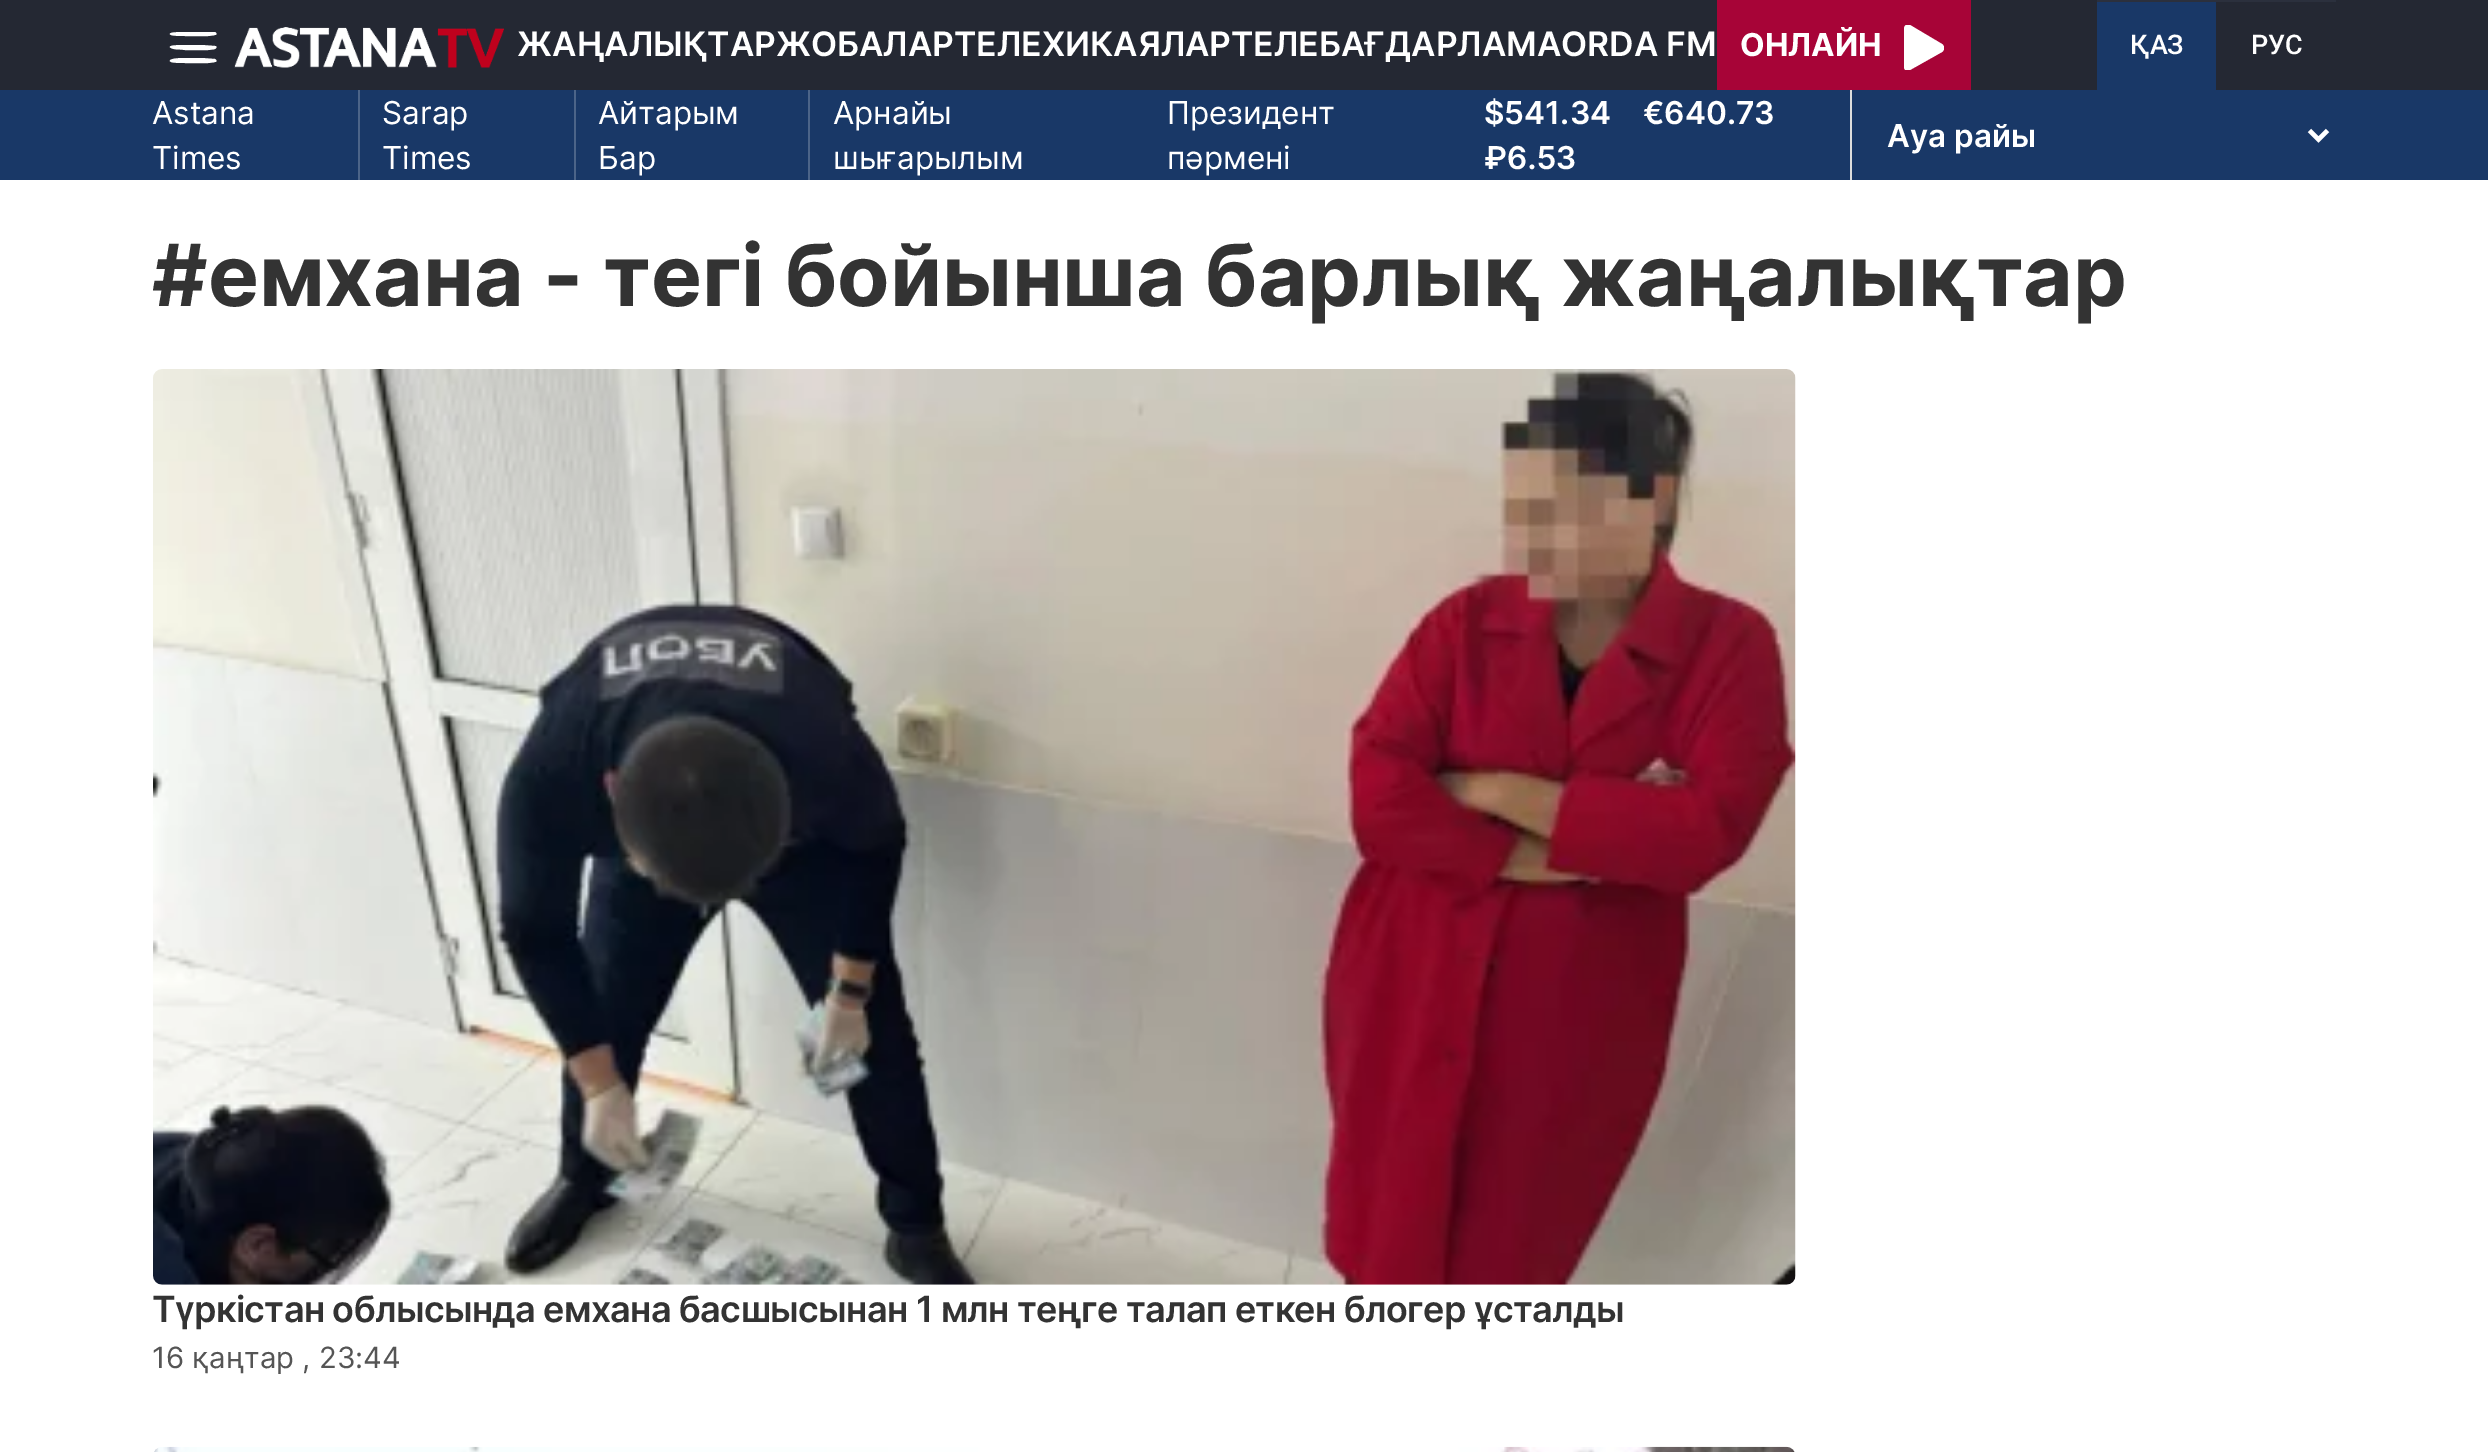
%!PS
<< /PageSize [2488 1452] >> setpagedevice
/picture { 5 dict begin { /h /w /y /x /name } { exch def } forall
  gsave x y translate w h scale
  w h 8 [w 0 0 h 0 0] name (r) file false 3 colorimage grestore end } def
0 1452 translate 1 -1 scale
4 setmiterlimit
1 setgray
0 0 2488 1452 rectfill
0.141 0.157 0.2 setrgbcolor
0 0 2488 90 rectfill
1 setgray
newpath 184 32 moveto 202 32 lineto 215 32 lineto 217 33 217 35 215 35 curveto 207 37 193 36 184 36 curveto 181 36 174 36 171 35 curveto 167 33 173 32 184 32 curveto closepath 184 45 moveto 202 45 lineto 215 46 lineto 217 46 217 48 215 49 curveto 207 51 193 50 184 50 curveto 181 49 174 50 171 48 curveto 167 46 173 45 184 45 curveto closepath 184 58 moveto 202 58 lineto 215 59 lineto 217 60 217 62 215 62 curveto 207 64 193 63 184 63 curveto 181 63 174 63 171 62 curveto 167 60 173 58 184 58 curveto closepath fill
(img1.rgb) 234 27 270 41 picture
/Inter-SemiBold [33.75 0 0 -33.75 0 0] selectfont
517 56 moveto (ЖАҢАЛЫҚТАРЖОБАЛАРТЕЛЕХИКАЯЛАРТЕЛЕБАҒДАРЛАМАORDA FM) show
0.655 0.016 0.216 setrgbcolor
1717 0 254 90 rectfill
/Inter-Bold [31.5 0 0 -31.5 0 0] selectfont
1 setgray
1740 56 moveto (ОНЛАЙН) show
gsave
1904 25 40 45 rectclip
newpath 1942 44 moveto 1910 25 lineto 1907 24 1904 25 1904 29 curveto 1904 67 lineto 1904 70 1907 72 1910 70 curveto 1942 52 lineto 1945 50 1945 46 1942 44 curveto closepath fill
grestore
0.098 0.22 0.404 setrgbcolor
2097 2 119 88 rectfill
0.169 0.188 0.239 setrgbcolor
2097 0 239 2 rectfill
/Roboto-Medium [27 0 0 -27 0 0] selectfont
1 setgray
2130 54 moveto (ҚАЗ) show
2251 54 moveto (РУС) show
0.098 0.22 0.404 setrgbcolor
0 90 2488 90 rectfill
0.298 0.392 0.533 setrgbcolor
358 90 2 90 rectfill
/Inter-Regular [31.5 0 0 -31.5 0 0] selectfont
1 setgray
152 124 moveto (Astana) show
152 169 moveto (Times) show
0.298 0.392 0.533 setrgbcolor
574 90 2 90 rectfill
1 setgray
382 124 moveto (Sarap) show
382 169 moveto (Times) show
0.298 0.392 0.533 setrgbcolor
808 90 2 90 rectfill
1 setgray
598 124 moveto (Айтарым) show
598 169 moveto (Бар) show
833 124 moveto (Арнайы) show
833 169 moveto (шығарылым) show
1167 124 moveto (Президент) show
1167 169 moveto (пәрмені) show
0.867 setgray
1850 90 2 90 rectfill
/Inter-SemiBold [31.5 0 0 -31.5 0 0] selectfont
1 setgray
1484 124 moveto ($541.34) show
1643 124 moveto (€640.73) show
/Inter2-SemiBold [31.5 0 0 -31.5 0 0] selectfont
1484 169 moveto (₽6.53) show
4.5 setlinewidth
newpath 2309.5 130.5 moveto 2318.5 139.5 lineto 2327.5 130.5 lineto stroke
/Inter-SemiBold [31.5 0 0 -31.5 0 0] selectfont
1887 147 moveto (Ауа райы) show
/Inter-Bold [85.5 0 0 -85.5 0 0] selectfont
0.2 setgray
152 306 moveto (#емхана - тегі бойынша барлық жаңалықтар) show
(img2.rgb) 153 369 1643 916 picture
/Inter-SemiBold [36 0 0 -36 0 0] selectfont
152 1322 moveto -0.67 0 (Түркістан облысында емхана басшысынан 1 млн теңге талап еткен блогер ұсталды) ashow
/Inter-Regular [29.25 0 0 -29.25 0 0] selectfont
0.333 setgray
152 1368 moveto (16 қаңтар , 23:44) show
(img3.rgb) 154 1446 1641 6 picture
showpage
